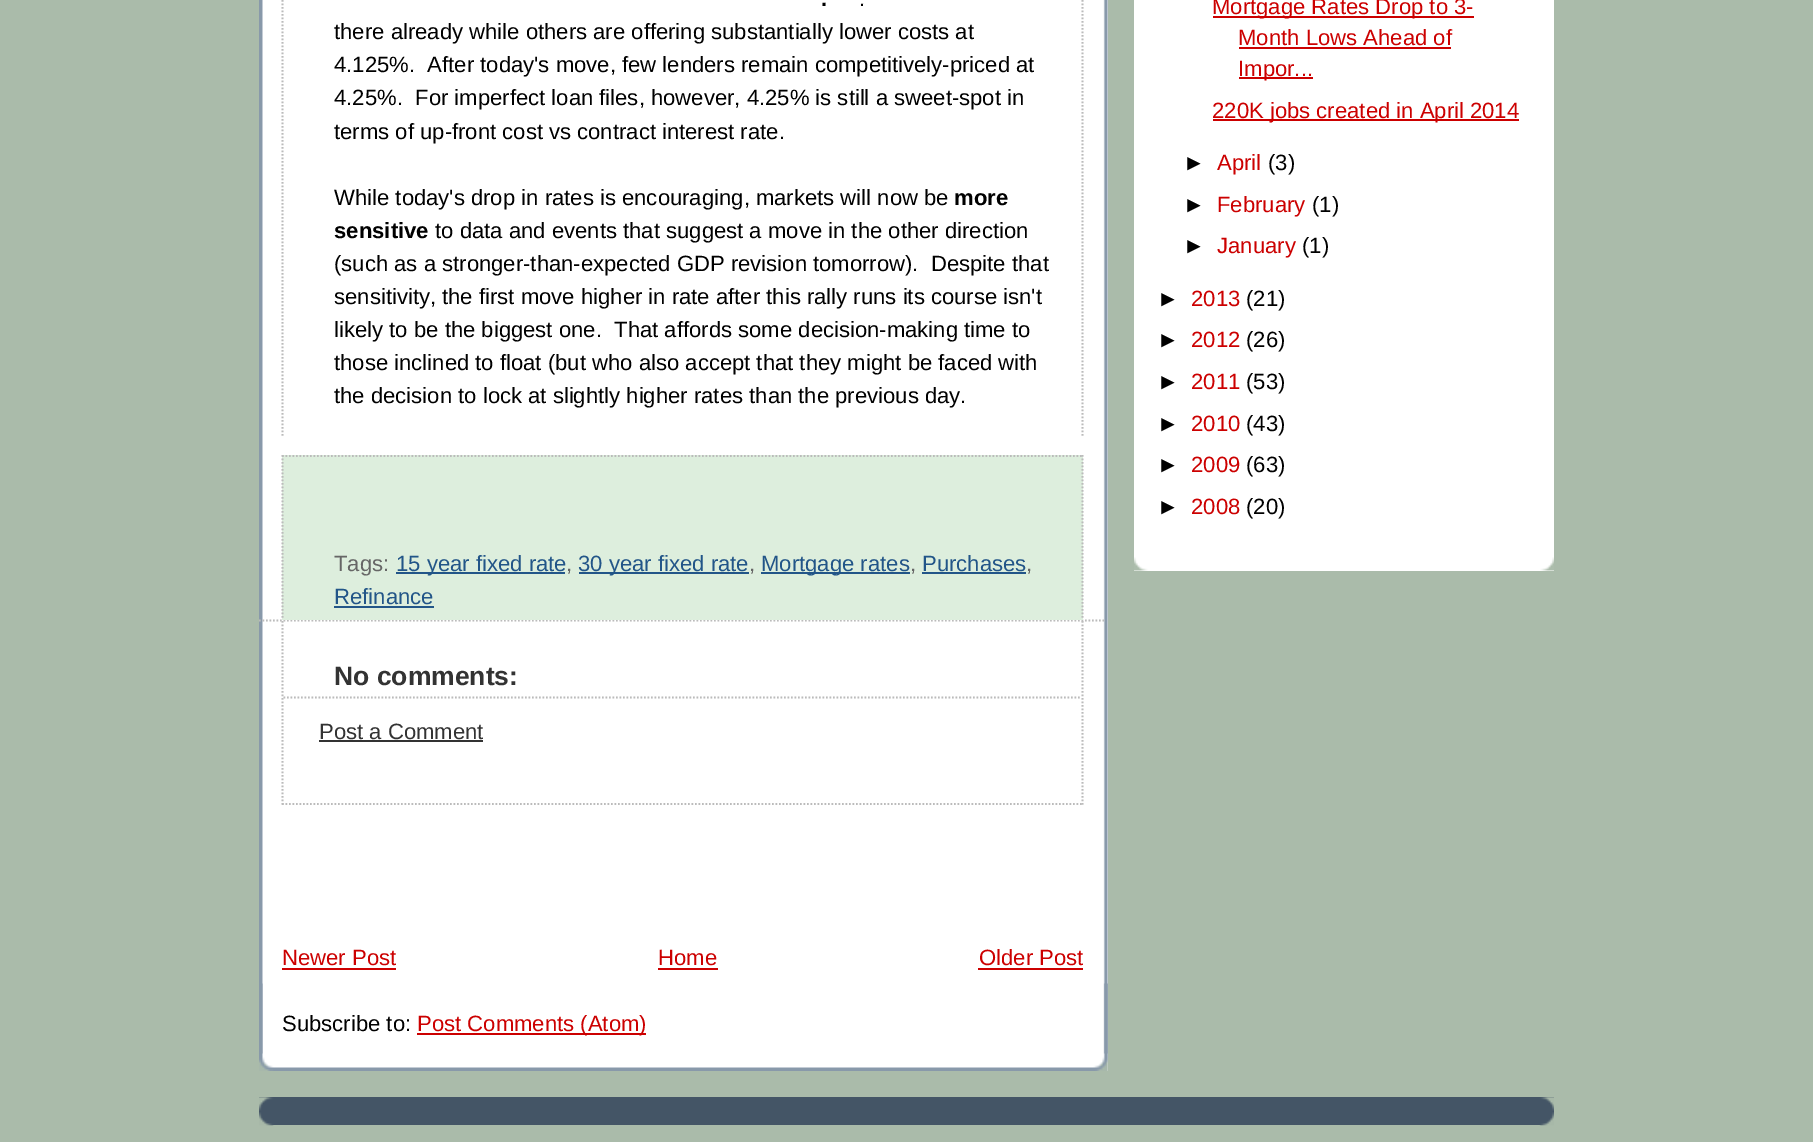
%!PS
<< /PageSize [1813 1142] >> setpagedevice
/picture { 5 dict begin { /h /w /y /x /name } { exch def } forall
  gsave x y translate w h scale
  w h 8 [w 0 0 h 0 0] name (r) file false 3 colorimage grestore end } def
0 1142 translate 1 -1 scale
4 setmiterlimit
0.667 0.733 0.667 setrgbcolor
0 0 1813 1142 rectfill
1 setgray
262 0 846 1071 rectfill
(img1.rgb) 259 983 849 88 picture
(img2.rgb) 259 0 849 1054 picture
0.733 setgray
1.8 setlinewidth
[1.75 1.75] 0 setdash
newpath 259 620.5 moveto 1106 620.5 lineto stroke
newpath 1082.5 -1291.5 moveto 1082.5 437.5 lineto stroke
newpath 282.5 -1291.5 moveto 282.5 437.5 lineto stroke
/LiberationSans-Bold [22.1 0 0 -22.1 0 0] selectfont
0 setgray
821 6 moveto (.) show
/LiberationSans-Regular [22.1 0 0 -22.1 0 0] selectfont
859 6 moveto (.) show
334 39 moveto (there already while others are offering substantially lower costs at) show
334 72 moveto (4.125%.  After today's move, few lenders remain competitively-priced at) show
334 105 moveto (4.25%.  For imperfect loan files, however, 4.25% is still a sweet-spot in) show
334 139 moveto (terms of up-front cost vs contract interest rate.) show
334 205 moveto (While today's drop in rates is encouraging, markets will now be) show
/LiberationSans-Bold [22.1 0 0 -22.1 0 0] selectfont
954 205 moveto (more) show
334 238 moveto (sensitive) show
/LiberationSans-Regular [22.1 0 0 -22.1 0 0] selectfont
435 238 moveto (to data and events that suggest a move in the other direction) show
334 271 moveto (\(such as a stronger-than-expected GDP revision tomorrow\).  Despite that) show
334 304 moveto (sensitivity, the first move higher in rate after this rally runs its course isn't) show
334 337 moveto (likely to be the biggest one.  That affords some decision-making time to) show
334 370 moveto (those inclined to float \(but who also accept that they might be faced with) show
334 403 moveto (the decision to lock at slightly higher rates than the previous day.) show
0.867 0.933 0.867 setrgbcolor
282 455 801 165 rectfill
0.733 setgray
newpath 282 456 moveto 1083 456 lineto stroke
newpath 1082.5 455 moveto 1082.5 619.5 lineto stroke
newpath 282.5 455 moveto 282.5 619.5 lineto stroke
0.4 setgray
334 571 moveto (Tags:) show
0.133 0.333 0.533 setrgbcolor
396 572 169 2 rectfill
396 571 moveto (15 year fixed rate) show
0.4 setgray
566 571 moveto (,) show
0.133 0.333 0.533 setrgbcolor
579 572 170 2 rectfill
578 571 moveto (30 year fixed rate) show
0.4 setgray
749 571 moveto (,) show
0.133 0.333 0.533 setrgbcolor
761 572 149 2 rectfill
761 571 moveto (Mortgage rates) show
0.4 setgray
910 571 moveto (,) show
0.133 0.333 0.533 setrgbcolor
922 571 moveto (Purchases) show
0.4 setgray
1026 571 moveto (,) show
0.133 0.333 0.533 setrgbcolor
922 572 104 2 rectfill
334 604 moveto (Refinance) show
334 606 100 2 rectfill
0.733 setgray
newpath 1082.5 621 moveto 1082.5 805 lineto stroke
newpath 282 804 moveto 1083 804 lineto stroke
newpath 282.5 621 moveto 282.5 805 lineto stroke
newpath 283.5 697.5 moveto 1081.5 697.5 lineto stroke
/LiberationSans-Bold [26.5 0 0 -26.5 0 0] selectfont
0.2 setgray
334 685 moveto (No comments:) show
/LiberationSans-Regular [22.1 0 0 -22.1 0 0] selectfont
319 739 moveto (Post a Comment) show
319 740 164 2 rectfill
0.8 0 0 setrgbcolor
282 965 moveto (Newer Post) show
282 968 114 2 rectfill
658 965 moveto (Home) show
658 968 60 2 rectfill
979 965 moveto (Older Post) show
978 968 105 2 rectfill
0 setgray
282 1031 moveto (Subscribe to:) show
0.8 0 0 setrgbcolor
417 1033 229 2 rectfill
417 1031 moveto (Post Comments \(Atom\)) show
1 setgray
1134 0 420 571 rectfill
(img3.rgb) 1134 557 420 14 picture
0.8 0 0 setrgbcolor
1213 16 261 2 rectfill
1212 14 moveto (Mortgage Rates Drop to 3-) show
1238 45 moveto (Month Lows Ahead of) show
1239 47 212 2 rectfill
1239 77 74 2 rectfill
1238 76 moveto (Impor...) show
1213 119 306 2 rectfill
1212 118 moveto (220K jobs created in April 2014) show
0 setgray
1183 170 moveto (►) show
0.8 0 0 setrgbcolor
1217 170 moveto (April) show
0 setgray
1268 170 moveto (\(3\)) show
1183 212 moveto (►) show
0.8 0 0 setrgbcolor
1217 212 moveto (February) show
0 setgray
1312 212 moveto (\(1\)) show
1183 253 moveto (►) show
0.8 0 0 setrgbcolor
1217 253 moveto (January) show
0 setgray
1302 253 moveto (\(1\)) show
1157 306 moveto (►) show
0.8 0 0 setrgbcolor
1191 306 moveto (2013) show
0 setgray
1246 306 moveto (\(21\)) show
1157 347 moveto (►) show
0.8 0 0 setrgbcolor
1191 347 moveto (2012) show
0 setgray
1246 347 moveto (\(26\)) show
1157 389 moveto (►) show
0.8 0 0 setrgbcolor
1191 389 moveto (2011) show
0 setgray
1246 389 moveto (\(53\)) show
1157 431 moveto (►) show
0.8 0 0 setrgbcolor
1191 431 moveto (2010) show
0 setgray
1246 431 moveto (\(43\)) show
1157 472 moveto (►) show
0.8 0 0 setrgbcolor
1191 472 moveto (2009) show
0 setgray
1246 472 moveto (\(63\)) show
1157 514 moveto (►) show
0.8 0 0 setrgbcolor
1191 514 moveto (2008) show
0 setgray
1246 514 moveto (\(20\)) show
0.267 0.333 0.4 setrgbcolor
259 1097 1295 28 rectfill
(img4.rgb) 259 1097 1295 14 picture
(img5.rgb) 259 1112 1295 14 picture
showpage
